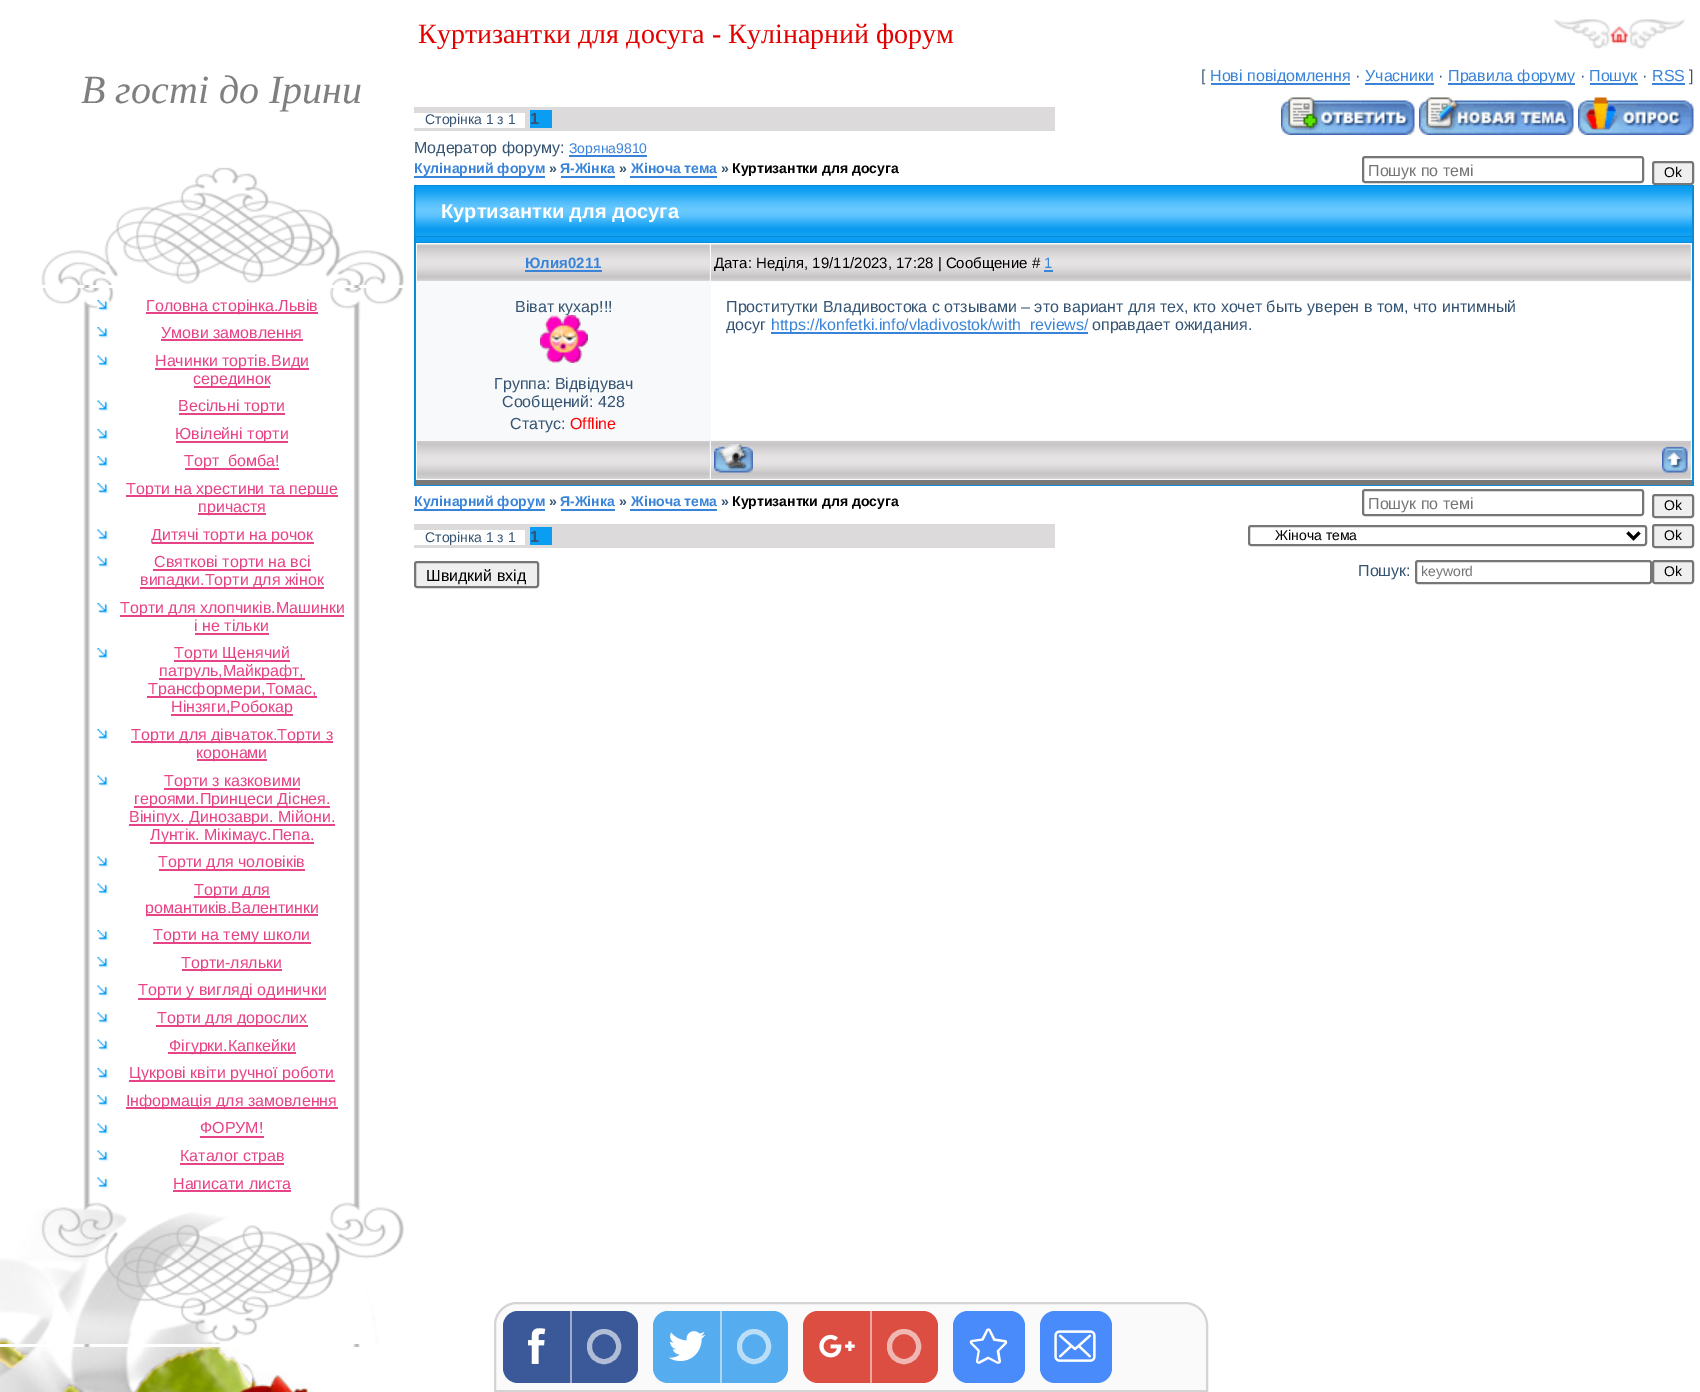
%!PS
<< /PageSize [1700 1392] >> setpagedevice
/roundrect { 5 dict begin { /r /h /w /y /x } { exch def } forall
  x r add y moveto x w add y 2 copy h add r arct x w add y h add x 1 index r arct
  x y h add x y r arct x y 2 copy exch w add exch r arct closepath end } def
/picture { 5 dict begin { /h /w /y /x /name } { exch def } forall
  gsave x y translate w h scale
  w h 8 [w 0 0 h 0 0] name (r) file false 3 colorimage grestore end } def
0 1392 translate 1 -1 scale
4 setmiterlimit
1 setgray
0 0 1700 1392 rectfill
/LiberationSerif-Regular [28 0 0 -28 0 0] selectfont
0.89 0 0 setrgbcolor
418 43 moveto (Куртизантки для досуга - Кулінарний форум) show
(img1.rgb) 1554 19 131 30 picture
/LiberationSerif-Italic [40 0 0 -40 0 0] selectfont
0.498 setgray
81 103 moveto (В гості до Ірини) show
(img2.rgb) 83 285 277 1062 picture
(img3.rgb) 41 165 363 120 picture
(img4.rgb) 42 288 362 31 picture
(img5.rgb) 97 300 13 11 picture
0.906 0.267 0.529 setrgbcolor
146 312 172 2 rectfill
/LiberationSans-Regular [16 0 0 -16 0 0] selectfont
146 311 moveto (Головна сторінка.Львів) show
(img6.rgb) 97 327 12 11 picture
161 338 moveto (Умови замовлення) show
161 339 142 2 rectfill
(img7.rgb) 97 355 12 12 picture
155 368 154 2 rectfill
155 366 moveto (Начинки тортів.Види) show
194 386 76 2 rectfill
193 384 moveto (серединок) show
(img7.rgb) 97 400 12 12 picture
179 413 106 2 rectfill
178 411 moveto (Весільні торти) show
(img6.rgb) 97 429 12 11 picture
176 441 112 2 rectfill
175 439 moveto (Ювілейні торти) show
(img6.rgb) 97 456 12 11 picture
185 468 94 2 rectfill
184 466 moveto (Торт_бомба!) show
(img6.rgb) 97 483 12 11 picture
126 495 212 2 rectfill
126 494 moveto (Торти на хрестини та перше) show
198 513 68 2 rectfill
198 512 moveto (причастя) show
(img7.rgb) 97 529 12 12 picture
152 542 162 2 rectfill
151 540 moveto (Дитячі торти на рочок) show
(img7.rgb) 97 556 12 12 picture
153 569 158 2 rectfill
154 567 moveto (Святкові торти на всі) show
140 587 184 2 rectfill
140 585 moveto (випадки.Торти для жінок) show
(img6.rgb) 97 603 12 11 picture
120 615 224 2 rectfill
120 613 moveto (Торти для хлопчиків.Машинки) show
194 631 moveto (і не тільки) show
195 633 74 2 rectfill
(img6.rgb) 97 648 12 11 picture
174 660 116 2 rectfill
174 658 moveto (Торти Щенячий) show
159 678 146 2 rectfill
159 676 moveto (патруль,Майкрафт,) show
147 696 170 2 rectfill
148 694 moveto (Трансформери,Томас,) show
171 714 122 2 rectfill
171 712 moveto (Нінзяги,Робокар) show
(img6.rgb) 97 729 12 11 picture
131 741 202 2 rectfill
131 740 moveto (Торти для дівчаток.Торти з) show
197 759 70 2 rectfill
196 758 moveto (коронами) show
(img7.rgb) 97 775 12 12 picture
164 788 136 2 rectfill
164 786 moveto (Торти з казковими) show
134 806 196 2 rectfill
134 804 moveto (героями.Принцеси Діснея.) show
129 824 206 2 rectfill
129 822 moveto (Вініпух. Динозаври. Мійони.) show
150 842 164 2 rectfill
150 840 moveto (Лунтік. Мікімаус.Пепа.) show
(img7.rgb) 97 856 12 12 picture
159 869 146 2 rectfill
158 867 moveto (Торти для чоловіків) show
(img7.rgb) 97 883 12 12 picture
194 896 76 2 rectfill
194 895 moveto (Торти для) show
146 914 172 2 rectfill
145 913 moveto (романтиків.Валентинки) show
(img6.rgb) 97 930 12 11 picture
153 942 158 2 rectfill
153 940 moveto (Торти на тему школи) show
(img6.rgb) 97 957 12 11 picture
182 969 100 2 rectfill
181 968 moveto (Торти-ляльки) show
(img7.rgb) 97 985 12 12 picture
138 998 188 2 rectfill
138 995 moveto (Торти у вигляді одинички) show
(img7.rgb) 97 1012 12 12 picture
156 1025 152 2 rectfill
157 1023 moveto (Торти для дорослих) show
(img7.rgb) 97 1039 12 12 picture
168 1052 128 2 rectfill
169 1051 moveto (Фігурки.Капкейки) show
(img6.rgb) 97 1068 12 11 picture
129 1080 206 2 rectfill
129 1078 moveto (Цукрові квіти ручної роботи) show
(img6.rgb) 97 1095 12 11 picture
126 1107 212 2 rectfill
126 1106 moveto (Інформація для замовлення) show
(img7.rgb) 97 1123 12 12 picture
200 1133 moveto (ФОРУМ!) show
200 1136 64 2 rectfill
(img7.rgb) 97 1150 12 12 picture
180 1163 104 2 rectfill
180 1161 moveto (Каталог страв) show
(img7.rgb) 97 1177 12 12 picture
173 1189 moveto (Написати листа) show
173 1190 118 2 rectfill
(img8.rgb) 0 1202 404 142 picture
(img9.rgb) 0 1347 360 45 picture
0.208 0.329 0.451 setrgbcolor
1201 81 moveto ([) show
0.224 0.518 0.847 setrgbcolor
1211 83 139 2 rectfill
1210 81 moveto (Нові повідомлення) show
0.208 0.329 0.451 setrgbcolor
1355 81 moveto (·) show
0.224 0.518 0.847 setrgbcolor
1365 81 moveto (Учасники) show
1365 83 69 2 rectfill
0.208 0.329 0.451 setrgbcolor
1438 81 moveto (·) show
0.224 0.518 0.847 setrgbcolor
1448 83 127 2 rectfill
1448 81 moveto (Правила форуму) show
0.208 0.329 0.451 setrgbcolor
1580 81 moveto (·) show
0.224 0.518 0.847 setrgbcolor
1590 83 48 2 rectfill
1589 81 moveto (Пошук) show
0.208 0.329 0.451 setrgbcolor
1642 81 moveto (·) show
0.224 0.518 0.847 setrgbcolor
1652 81 moveto (RSS) show
1652 83 33 2 rectfill
0.208 0.329 0.451 setrgbcolor
1689 81 moveto (]) show
0.863 0.855 0.855 setrgbcolor
414 107 641 24 rectfill
1 setgray
414 113 111 15 rectfill
/LiberationSans-Regular [14 0 0 -14 0 0] selectfont
0.208 0.329 0.451 setrgbcolor
425 124 moveto (Сторінка 1 з 1) show
0.043 0.616 0.945 setrgbcolor
530 110 22 18 rectfill
/LiberationSans-Bold [16 0 0 -16 0 0] selectfont
0.208 0.329 0.451 setrgbcolor
530 124 moveto (1) show
(img10.rgb) 1281 97 134 38 picture
(img11.rgb) 1419 97 155 38 picture
(img12.rgb) 1578 97 116 38 picture
/LiberationSans-Regular [16 0 0 -16 0 0] selectfont
414 153 moveto (Модератор форуму:) show
0.224 0.518 0.847 setrgbcolor
569 155 78 2 rectfill
/LiberationSans-Regular [14 0 0 -14 0 0] selectfont
569 153 moveto (Зоряна9810) show
/LiberationSans-Bold [14 0 0 -14 0 0] selectfont
414 173 moveto (Кулінарний форум) show
414 176 131 2 rectfill
0.208 0.329 0.451 setrgbcolor
549 173 moveto (») show
0.224 0.518 0.847 setrgbcolor
560 173 moveto (Я-Жінка) show
561 176 54 2 rectfill
0.208 0.329 0.451 setrgbcolor
619 173 moveto (») show
0.224 0.518 0.847 setrgbcolor
631 173 moveto (Жіноча тема) show
630 176 87 2 rectfill
0.208 0.329 0.451 setrgbcolor
721 173 moveto (») show
0 setgray
732 173 moveto (Куртизантки для досуга) show
0.463 setgray
2 setlinewidth
1363 157 280 25 2 roundrect stroke
/LiberationSans-Regular [16 0 0 -16 0 0] selectfont
0.459 setgray
1368 176 moveto (Пошук по темі) show
0.937 setgray
1653 162 40 22 2 roundrect gsave fill grestore
0.463 setgray
stroke
/LiberationSans-Regular [14 0 0 -14 0 0] selectfont
0 setgray
1664 177 moveto (Ok) show
0.039 0.549 0.843 setrgbcolor
414 185 1280 301 rectfill
0.043 0.616 0.945 setrgbcolor
416 235 1276 1 rectfill
(img13.rgb) 415 186 1277 50 picture
/LiberationSans-Bold [20 0 0 -20 0 0] selectfont
1 setgray
441 218 moveto (Куртизантки для досуга) show
0.043 0.616 0.945 setrgbcolor
416 237 1276 5 rectfill
0.973 0.976 0.98 setrgbcolor
416 243 1276 237 rectfill
0.471 setgray
416 480 1276 5 rectfill
0.878 setgray
417 245 293 36 rectfill
(img14.rgb) 417 244 293 37 picture
/LiberationSans-Bold [15 0 0 -15 0 0] selectfont
0.224 0.518 0.847 setrgbcolor
525 268 moveto (Юлия0211) show
525 270 77 2 rectfill
0.878 setgray
711 245 980 36 rectfill
(img15.rgb) 711 244 980 37 picture
/LiberationSans-Regular [15 0 0 -15 0 0] selectfont
0 setgray
714 268 moveto (Дата: Неділя, 19/11/2023, 17:28 | Сообщение #) show
0.224 0.518 0.847 setrgbcolor
1044 268 moveto (1) show
1044 270 9 2 rectfill
/LiberationSans-Regular [16 0 0 -16 0 0] selectfont
0.208 0.329 0.451 setrgbcolor
515 312 moveto (Віват кухар!!!) show
(img16.rgb) 540 315 48 48 picture
494 389 moveto (Группа: Відвідувач) show
502 407 moveto (Сообщений: 428) show
510 429 moveto (Статус:) show
1 0 0 setrgbcolor
570 429 moveto (Offline) show
1 setgray
711 282 980 158 rectfill
0.208 0.329 0.451 setrgbcolor
726 312 moveto (Проститутки Владивостока с отзывами – это вариант для тех, кто хочет быть уверен в том, что интимный) show
726 330 moveto (досуг) show
0.224 0.518 0.847 setrgbcolor
771 332 317 2 rectfill
771 330 moveto (https://konfetki.info/vladivostok/with_reviews/) show
0.208 0.329 0.451 setrgbcolor
1092 330 moveto (оправдает ожидания.) show
0.878 setgray
417 441 293 38 rectfill
(img17.rgb) 417 441 293 38 picture
711 441 980 38 rectfill
(img18.rgb) 711 441 980 38 picture
(img19.rgb) 714 444 39 29 picture
(img20.rgb) 1662 446 26 27 picture
/LiberationSans-Bold [14 0 0 -14 0 0] selectfont
0.224 0.518 0.847 setrgbcolor
414 506 moveto (Кулінарний форум) show
414 509 131 2 rectfill
0.208 0.329 0.451 setrgbcolor
549 506 moveto (») show
0.224 0.518 0.847 setrgbcolor
560 506 moveto (Я-Жінка) show
561 509 54 2 rectfill
0.208 0.329 0.451 setrgbcolor
619 506 moveto (») show
0.224 0.518 0.847 setrgbcolor
631 506 moveto (Жіноча тема) show
630 509 87 2 rectfill
0.208 0.329 0.451 setrgbcolor
721 506 moveto (») show
0 setgray
732 506 moveto (Куртизантки для досуга) show
0.463 setgray
1363 490 280 25 2 roundrect stroke
/LiberationSans-Regular [16 0 0 -16 0 0] selectfont
0.459 setgray
1368 509 moveto (Пошук по темі) show
0.937 setgray
1653 495 40 22 2 roundrect gsave fill grestore
0.463 setgray
stroke
/LiberationSans-Regular [14 0 0 -14 0 0] selectfont
0 setgray
1664 510 moveto (Ok) show
0.863 0.855 0.855 setrgbcolor
414 524 641 24 rectfill
1 setgray
414 530 111 15 rectfill
0.208 0.329 0.451 setrgbcolor
425 542 moveto (Сторінка 1 з 1) show
0.043 0.616 0.945 setrgbcolor
530 527 22 18 rectfill
/LiberationSans-Bold [16 0 0 -16 0 0] selectfont
0.208 0.329 0.451 setrgbcolor
530 542 moveto (1) show
0.463 setgray
1249 526 397 19 2 roundrect stroke
0 setgray
3 setlinewidth
newpath 1627.5 532.5 moveto 1633.5 538.5 lineto 1639.5 532.5 lineto stroke
/LiberationSans-Regular [14 0 0 -14 0 0] selectfont
1275 540 moveto (Жіноча тема) show
0.937 setgray
1653 525 40 22 2 roundrect gsave fill grestore
0.463 setgray
2 setlinewidth
stroke
0 setgray
1664 540 moveto (Ok) show
0.937 setgray
415 562 123 25 2 roundrect gsave fill grestore
0.463 setgray
stroke
/LiberationSans-Regular [16 0 0 -16 0 0] selectfont
0 setgray
426 581 moveto (Швидкий вхід) show
0.208 0.329 0.451 setrgbcolor
1358 576 moveto (Пошук:) show
0.463 setgray
1416 561 235 22 2 roundrect stroke
/LiberationSans-Regular [14 0 0 -14 0 0] selectfont
0.459 setgray
1421 576 moveto (keyword) show
0.937 setgray
1653 561 40 22 2 roundrect gsave fill grestore
0.463 setgray
stroke
0 setgray
1664 576 moveto (Ok) show
0.98 setgray
newpath 517 1303 moveto 1185 1303 lineto 1197 1303 1207 1313 1207 1325 curveto 1207 1391 lineto 495 1391 lineto 495 1325 lineto 495 1313 505 1303 517 1303 curveto closepath gsave fill grestore
0.831 setgray
stroke
0.231 0.349 0.596 setrgbcolor
503 1311 135 72 15 roundrect fill
(img21.rgb) 528 1328 18 36 picture
0.616 0.675 0.8 setrgbcolor
570 1311 2 72 rectfill
0.694 0.741 0.839 setrgbcolor
5 setlinewidth
589.5 1331.5 29 30 14.5 roundrect stroke
0.333 0.675 0.933 setrgbcolor
653 1311 135 72 15 roundrect fill
(img22.rgb) 668 1331 38 30 picture
0.667 0.839 0.969 setrgbcolor
720 1311 2 72 rectfill
0.733 0.871 0.973 setrgbcolor
739.5 1331.5 29 30 14.5 roundrect stroke
0.863 0.306 0.255 setrgbcolor
803 1311 135 72 15 roundrect fill
(img23.rgb) 819 1334 36 24 picture
0.933 0.655 0.627 setrgbcolor
870 1311 2 72 rectfill
0.945 0.722 0.702 setrgbcolor
889.5 1331.5 29 30 14.5 roundrect stroke
0.286 0.545 0.98 setrgbcolor
953 1311 72 72 15 roundrect fill
(img24.rgb) 969 1328 39 36 picture
1040 1311 72 72 15 roundrect fill
(img25.rgb) 1054 1330 42 32 picture
showpage
